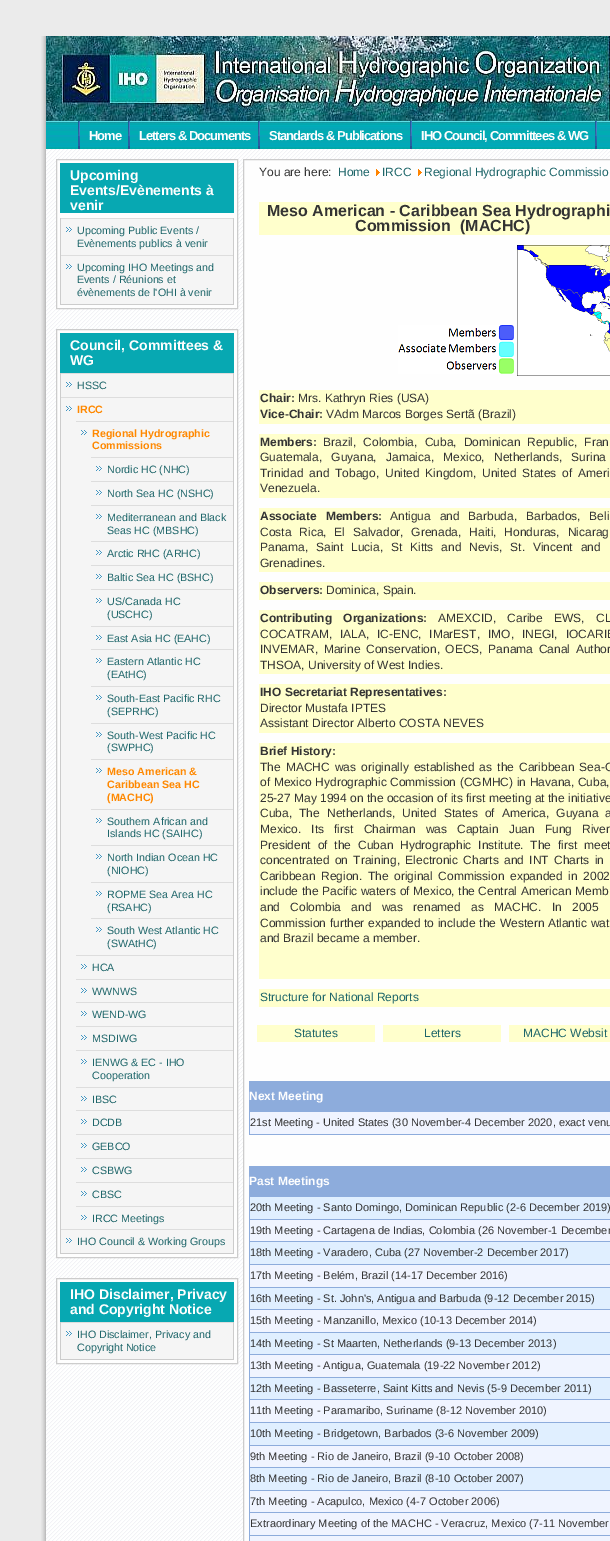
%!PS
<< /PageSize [610 1541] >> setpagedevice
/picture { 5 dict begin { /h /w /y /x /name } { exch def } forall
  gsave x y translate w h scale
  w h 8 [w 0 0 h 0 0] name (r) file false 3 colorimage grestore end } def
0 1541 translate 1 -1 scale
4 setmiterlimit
0.922 setgray
0 0 610 1541 rectfill
(img1.rgb) 41 36 5 1505 picture
(img2.rgb) 46 36 564 85 picture
(img3.rgb) 46 121 564 28 picture
(img4.rgb) 78 121 2 28 picture
(img4.rgb) 128 121 2 28 picture
/LiberationSans-Bold [13 0 0 -13 0 0] selectfont
0.996 setgray
89 140 moveto -1 0 (Home) ashow
(img4.rgb) 258 121 2 28 picture
139 140 moveto -1 0 (Letters & Documents) ashow
(img4.rgb) 410 121 2 28 picture
269 140 moveto -1 0 (Standards & Publications) ashow
(img4.rgb) 595 121 2 28 picture
421 140 moveto -1 0 (IHO Council, Committees & WG) ashow
(img5.rgb) 46 149 564 1392 picture
newpath 56.5 159.5 moveto 237.5 159.5 lineto 237.5 308.5 lineto 56.5 308.5 lineto closepath gsave fill grestore
0.8 setgray
stroke
0.027 0.659 0.698 setrgbcolor
60 163 174 50 rectfill
/LiberationSans-Bold [14 0 0 -14 0 0] selectfont
0.996 setgray
70 180 moveto (Upcoming) show
70 195 moveto (Events/Evènements à) show
70 210 moveto (venir) show
0.961 setgray
61 219 172 85 rectfill
0.8 setgray
233 218 1 87 rectfill
60 304 174 1 rectfill
60 218 1 87 rectfill
(img6.rgb) 66 227 6 5 picture
0.867 setgray
61 218 172 1 rectfill
/LiberationSans-Regular [10.7 0 0 -10.7 0 0] selectfont
0.118 0.4 0.416 setrgbcolor
77 234 moveto (Upcoming Public Events /) show
77 247 moveto (Evènements publics à venir) show
(img6.rgb) 66 264 6 5 picture
0.867 setgray
61 255 172 1 rectfill
0.118 0.4 0.416 setrgbcolor
77 271 moveto (Upcoming IHO Meetings and) show
77 283 moveto (Events / Réunions et) show
77 296 moveto (évènements de l'OHI à venir) show
0.996 setgray
newpath 56.5 329.5 moveto 237.5 329.5 lineto 237.5 1257.5 lineto 56.5 1257.5 lineto closepath gsave fill grestore
0.8 setgray
stroke
0.027 0.659 0.698 setrgbcolor
60 333 174 40 rectfill
/LiberationSans-Bold [14 0 0 -14 0 0] selectfont
0.996 setgray
70 350 moveto (Council, Committees &) show
70 365 moveto (WG) show
0.961 setgray
61 374 172 879 rectfill
0.8 setgray
233 373 1 881 rectfill
60 1253 174 1 rectfill
60 373 1 881 rectfill
(img6.rgb) 66 382 6 5 picture
0.867 setgray
61 373 172 1 rectfill
/LiberationSans-Regular [10.7 0 0 -10.7 0 0] selectfont
0.118 0.4 0.416 setrgbcolor
77 389 moveto (HSSC) show
(img6.rgb) 66 406 6 5 picture
0.867 setgray
61 397 172 1 rectfill
/LiberationSans-Bold [10.7 0 0 -10.7 0 0] selectfont
1 0.533 0 setrgbcolor
77 413 moveto (IRCC) show
(img6.rgb) 81 430 6 5 picture
0.867 setgray
76 421 157 1 rectfill
1 0.533 0 setrgbcolor
92 437 moveto (Regional Hydrographic) show
92 449 moveto (Commissions) show
(img6.rgb) 96 466 6 5 picture
0.867 setgray
91 457 142 1 rectfill
/LiberationSans-Regular [10.7 0 0 -10.7 0 0] selectfont
0.118 0.4 0.416 setrgbcolor
107 473 moveto (Nordic HC \(NHC\)) show
(img6.rgb) 96 490 6 5 picture
0.867 setgray
91 481 142 1 rectfill
0.118 0.4 0.416 setrgbcolor
107 497 moveto (North Sea HC \(NSHC\)) show
(img6.rgb) 96 514 6 5 picture
0.867 setgray
91 505 142 1 rectfill
0.118 0.4 0.416 setrgbcolor
107 521 moveto (Mediterranean and Black) show
107 534 moveto (Seas HC \(MBSHC\)) show
(img6.rgb) 96 550 6 5 picture
0.867 setgray
91 541 142 1 rectfill
0.118 0.4 0.416 setrgbcolor
107 557 moveto (Arctic RHC \(ARHC\)) show
(img6.rgb) 96 574 6 5 picture
0.867 setgray
91 565 142 1 rectfill
0.118 0.4 0.416 setrgbcolor
107 581 moveto (Baltic Sea HC \(BSHC\)) show
(img6.rgb) 96 598 6 5 picture
0.867 setgray
91 589 142 1 rectfill
0.118 0.4 0.416 setrgbcolor
107 605 moveto (US/Canada HC) show
107 618 moveto (\(USCHC\)) show
(img6.rgb) 96 635 6 5 picture
0.867 setgray
91 626 142 1 rectfill
0.118 0.4 0.416 setrgbcolor
107 642 moveto (East Asia HC \(EAHC\)) show
(img6.rgb) 96 658 6 5 picture
0.867 setgray
91 649 142 1 rectfill
0.118 0.4 0.416 setrgbcolor
107 665 moveto (Eastern Atlantic HC) show
107 678 moveto (\(EAtHC\)) show
(img6.rgb) 96 695 6 5 picture
0.867 setgray
91 686 142 1 rectfill
0.118 0.4 0.416 setrgbcolor
107 702 moveto (South-East Pacific RHC) show
107 715 moveto (\(SEPRHC\)) show
(img6.rgb) 96 732 6 5 picture
0.867 setgray
91 723 142 1 rectfill
0.118 0.4 0.416 setrgbcolor
107 739 moveto (South-West Pacific HC) show
107 751 moveto (\(SWPHC\)) show
(img6.rgb) 96 768 6 5 picture
0.867 setgray
91 759 142 1 rectfill
/LiberationSans-Bold [10.7 0 0 -10.7 0 0] selectfont
1 0.533 0 setrgbcolor
107 775 moveto (Meso American &) show
107 788 moveto (Caribbean Sea HC) show
107 801 moveto (\(MACHC\)) show
(img6.rgb) 96 818 6 5 picture
0.867 setgray
91 809 142 1 rectfill
/LiberationSans-Regular [10.7 0 0 -10.7 0 0] selectfont
0.118 0.4 0.416 setrgbcolor
107 825 moveto (Southern African and) show
107 837 moveto (Islands HC \(SAIHC\)) show
(img6.rgb) 96 854 6 5 picture
0.867 setgray
91 845 142 1 rectfill
0.118 0.4 0.416 setrgbcolor
107 861 moveto (North Indian Ocean HC) show
107 874 moveto (\(NIOHC\)) show
(img6.rgb) 96 891 6 5 picture
0.867 setgray
91 882 142 1 rectfill
0.118 0.4 0.416 setrgbcolor
107 898 moveto (ROPME Sea Area HC) show
107 911 moveto (\(RSAHC\)) show
(img6.rgb) 96 927 6 5 picture
0.867 setgray
91 918 142 1 rectfill
0.118 0.4 0.416 setrgbcolor
107 934 moveto (South West Atlantic HC) show
107 947 moveto (\(SWAtHC\)) show
(img6.rgb) 81 964 6 5 picture
0.867 setgray
76 955 157 1 rectfill
0.118 0.4 0.416 setrgbcolor
92 971 moveto (HCA) show
(img6.rgb) 81 988 6 5 picture
0.867 setgray
76 979 157 1 rectfill
0.118 0.4 0.416 setrgbcolor
92 995 moveto (WWNWS) show
(img6.rgb) 81 1011 6 5 picture
0.867 setgray
76 1002 157 1 rectfill
0.118 0.4 0.416 setrgbcolor
92 1018 moveto (WEND-WG) show
(img6.rgb) 81 1035 6 5 picture
0.867 setgray
76 1026 157 1 rectfill
0.118 0.4 0.416 setrgbcolor
92 1042 moveto (MSDIWG) show
(img6.rgb) 81 1059 6 5 picture
0.867 setgray
76 1050 157 1 rectfill
0.118 0.4 0.416 setrgbcolor
92 1066 moveto (IENWG & EC - IHO) show
92 1079 moveto (Cooperation) show
(img6.rgb) 81 1096 6 5 picture
0.867 setgray
76 1087 157 1 rectfill
0.118 0.4 0.416 setrgbcolor
92 1103 moveto (IBSC) show
(img6.rgb) 81 1119 6 5 picture
0.867 setgray
76 1110 157 1 rectfill
0.118 0.4 0.416 setrgbcolor
92 1126 moveto (DCDB) show
(img6.rgb) 81 1143 6 5 picture
0.867 setgray
76 1134 157 1 rectfill
0.118 0.4 0.416 setrgbcolor
92 1150 moveto (GEBCO) show
(img6.rgb) 81 1167 6 5 picture
0.867 setgray
76 1158 157 1 rectfill
0.118 0.4 0.416 setrgbcolor
92 1174 moveto (CSBWG) show
(img6.rgb) 81 1191 6 5 picture
0.867 setgray
76 1182 157 1 rectfill
0.118 0.4 0.416 setrgbcolor
92 1198 moveto (CBSC) show
(img6.rgb) 81 1215 6 5 picture
0.867 setgray
76 1206 157 1 rectfill
0.118 0.4 0.416 setrgbcolor
92 1222 moveto (IRCC Meetings) show
(img6.rgb) 66 1238 6 5 picture
0.867 setgray
61 1229 172 1 rectfill
0.118 0.4 0.416 setrgbcolor
77 1245 moveto (IHO Council & Working Groups) show
0.996 setgray
newpath 56.5 1278.5 moveto 237.5 1278.5 lineto 237.5 1363.5 lineto 56.5 1363.5 lineto closepath gsave fill grestore
0.8 setgray
stroke
0.027 0.659 0.698 setrgbcolor
60 1282 174 40 rectfill
/LiberationSans-Bold [14 0 0 -14 0 0] selectfont
0.996 setgray
70 1299 moveto (IHO Disclaimer, Privacy) show
70 1314 moveto (and Copyright Notice) show
0.961 setgray
61 1323 172 36 rectfill
0.8 setgray
233 1322 1 38 rectfill
60 1359 174 1 rectfill
60 1322 1 38 rectfill
(img6.rgb) 66 1331 6 5 picture
0.867 setgray
61 1322 172 1 rectfill
/LiberationSans-Regular [10.7 0 0 -10.7 0 0] selectfont
0.118 0.4 0.416 setrgbcolor
77 1338 moveto (IHO Disclaimer, Privacy and) show
77 1351 moveto (Copyright Notice) show
0.996 setgray
newpath 243.5 159.5 moveto 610.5 159.5 lineto 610.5 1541.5 lineto 243.5 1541.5 lineto closepath gsave fill grestore
0.8 setgray
stroke
/LiberationSans-Regular [12 0 0 -12 0 0] selectfont
0.2 setgray
259 176 moveto (You are here:) show
0.118 0.4 0.416 setrgbcolor
338 176 moveto (Home) show
(img7.rgb) 376 169 4 7 picture
382 176 moveto (IRCC) show
(img7.rgb) 418 169 4 7 picture
424 176 moveto (Regional Hydrographic Commissio) show
1 1 0.8 setrgbcolor
259 202 351 33 rectfill
/LiberationSans-Bold [16 0 0 -16 0 0] selectfont
0.2 setgray
267 216 moveto (Meso American - Caribbean Sea Hydrographi) show
355 231 moveto (Commission  \(MACHC\)) show
(img8.rgb) 398 325 116 49 picture
(img9.rgb) 517 245 93 131 picture
1 1 0.8 setrgbcolor
259 390 351 34 rectfill
/LiberationSans-Bold [12 0 0 -12 0 0] selectfont
0.2 setgray
260 402 moveto (Chair:) show
/LiberationSans-Regular [12 0 0 -12 0 0] selectfont
298 402 moveto (Mrs. Kathryn Ries \(USA\)) show
/LiberationSans-Bold [12 0 0 -12 0 0] selectfont
260 418 moveto (Vice-Chair:) show
/LiberationSans-Regular [12 0 0 -12 0 0] selectfont
326 418 moveto (VAdm Marcos Borges Sertã \(Brazil\)) show
1 1 0.8 setrgbcolor
259 434 351 64 rectfill
/LiberationSans-Bold [12 0 0 -12 0 0] selectfont
0.2 setgray
260 446 moveto (Members:) show
/LiberationSans-Regular [12 0 0 -12 0 0] selectfont
323 446 moveto 3.75 0 32 (Brazil, Colombia, Cuba, Dominican Republic, Fran) widthshow
260 461 moveto 6 0 32 (Guatemala, Guyana, Jamaica, Mexico, Netherlands, Surina) widthshow
260 477 moveto 2.5 0 32 (Trinidad and Tobago, United Kingdom, United States of Ameri) widthshow
260 492 moveto (Venezuela.) show
1 1 0.8 setrgbcolor
259 508 351 64 rectfill
/LiberationSans-Bold [12 0 0 -12 0 0] selectfont
0.2 setgray
260 520 moveto 5.5 0 32 (Associate Members:) widthshow
/LiberationSans-Regular [12 0 0 -12 0 0] selectfont
390 520 moveto 5.5 0 32 (Antigua and Barbuda, Barbados, Beli) widthshow
260 536 moveto 4.5 0 32 (Costa Rica, El Salvador, Grenada, Haiti, Honduras, Nicarag) widthshow
260 551 moveto 4.5 0 32 (Panama, Saint Lucia, St Kitts and Nevis, St. Vincent and) widthshow
260 567 moveto (Grenadines.) show
1 1 0.8 setrgbcolor
259 582 351 18 rectfill
/LiberationSans-Bold [12 0 0 -12 0 0] selectfont
0.2 setgray
260 594 moveto (Observers:) show
/LiberationSans-Regular [12 0 0 -12 0 0] selectfont
326 594 moveto (Dominica, Spain.) show
1 1 0.8 setrgbcolor
259 610 351 64 rectfill
/LiberationSans-Bold [12 0 0 -12 0 0] selectfont
0.2 setgray
260 622 moveto 8 0 32 (Contributing Organizations:) widthshow
/LiberationSans-Regular [12 0 0 -12 0 0] selectfont
438 622 moveto 8 0 32 (AMEXCID, Caribe EWS, CL) widthshow
260 638 moveto 4.5 0 32 (COCATRAM, IALA, IC-ENC, IMarEST, IMO, INEGI, IOCARIB) widthshow
260 653 moveto 2.25 0 32 (INVEMAR, Marine Conservation, OECS, Panama Canal Author) widthshow
260 669 moveto (THSOA, University of West Indies.) show
1 1 0.8 setrgbcolor
259 684 351 49 rectfill
/LiberationSans-Bold [12 0 0 -12 0 0] selectfont
0.2 setgray
260 696 moveto (IHO Secretariat Representatives:) show
/LiberationSans-Regular [12 0 0 -12 0 0] selectfont
260 712 moveto (Director Mustafa IPTES) show
260 727 moveto (Assistant Director Alberto COSTA NEVES) show
1 1 0.8 setrgbcolor
259 743 351 236 rectfill
/LiberationSans-Bold [12 0 0 -12 0 0] selectfont
0.2 setgray
260 755 moveto (Brief History:) show
/LiberationSans-Regular [12 0 0 -12 0 0] selectfont
260 771 moveto 1.75 0 32 (The MACHC was originally established as the Caribbean Sea-G) widthshow
260 786 moveto 0.25 0 32 (of Mexico Hydrographic Commission \(CGMHC\) in Havana, Cuba,) widthshow
260 802 moveto (25-27 May 1994 on the occasion of its first meeting at the initiative) show
260 817 moveto 3.75 0 32 (Cuba, The Netherlands, United States of America, Guyana a) widthshow
260 833 moveto 6.75 0 32 (Mexico. Its first Chairman was Captain Juan Fung River) widthshow
260 849 moveto 3.5 0 32 (President of the Cuban Hydrographic Institute. The first meet) widthshow
260 864 moveto 2 0 32 (concentrated on Training, Electronic Charts and INT Charts in) widthshow
260 880 moveto 2.25 0 32 (Caribbean Region. The original Commission expanded in 2002) widthshow
260 895 moveto 0.25 0 32 (include the Pacific waters of Mexico, the Central American Memb) widthshow
260 911 moveto 7 0 32 (and Colombia and was renamed as MACHC. In 2005) widthshow
260 927 moveto 0.25 0 32 (Commission further expanded to include the Western Atlantic wat) widthshow
260 942 moveto (and Brazil became a member.) show
1 1 0.8 setrgbcolor
259 989 351 18 rectfill
0.118 0.4 0.416 setrgbcolor
260 1001 moveto (Structure for National Reports) show
1 1 0.8 setrgbcolor
257 1025 118 17 rectfill
0.118 0.4 0.416 setrgbcolor
294 1037 moveto (Statutes) show
1 1 0.8 setrgbcolor
383 1025 118 17 rectfill
0.118 0.4 0.416 setrgbcolor
424 1037 moveto (Letters) show
1 1 0.8 setrgbcolor
509 1025 101 17 rectfill
0.118 0.4 0.416 setrgbcolor
523 1037 moveto (MACHC Websit) show
0.553 0.675 0.863 setrgbcolor
249 1081 361 31 rectfill
/LiberationSans-Bold [12 0 0 -12 0 0] selectfont
0.996 setgray
249 1100 moveto (Next Meeting) show
0.941 0.957 1 setrgbcolor
250 1112 360 22 rectfill
0.553 0.675 0.863 setrgbcolor
249 1134 361 1 rectfill
249 1112 1 23 rectfill
/LiberationSans-Regular [11 0 0 -11 0 0] selectfont
0.2 setgray
250 1126 moveto (21st Meeting - United States \(30 November-4 December 2020, exact venu) show
0.553 0.675 0.863 setrgbcolor
249 1166 361 31 rectfill
/LiberationSans-Bold [12 0 0 -12 0 0] selectfont
0.996 setgray
249 1185 moveto (Past Meetings) show
0.878 0.937 1 setrgbcolor
250 1197 360 22 rectfill
0.553 0.675 0.863 setrgbcolor
249 1219 361 1 rectfill
249 1197 1 23 rectfill
/LiberationSans-Regular [11 0 0 -11 0 0] selectfont
0.2 setgray
250 1211 moveto (20th Meeting - Santo Domingo, Dominican Republic \(2-6 December 2019\)) show
0.941 0.957 1 setrgbcolor
250 1220 360 21 rectfill
0.553 0.675 0.863 setrgbcolor
249 1241 361 1 rectfill
249 1220 1 22 rectfill
0.2 setgray
250 1234 moveto (19th Meeting - Cartagena de Indias, Colombia \(26 November-1 December) show
0.878 0.937 1 setrgbcolor
250 1242 360 22 rectfill
0.553 0.675 0.863 setrgbcolor
249 1264 361 1 rectfill
249 1242 1 23 rectfill
0.2 setgray
250 1256 moveto (18th Meeting - Varadero, Cuba \(27 November-2 December 2017\)) show
0.941 0.957 1 setrgbcolor
250 1265 360 22 rectfill
0.553 0.675 0.863 setrgbcolor
249 1287 361 1 rectfill
249 1265 1 23 rectfill
0.2 setgray
250 1279 moveto (17th Meeting - Belém, Brazil \(14-17 December 2016\)) show
0.878 0.937 1 setrgbcolor
250 1288 360 21 rectfill
0.553 0.675 0.863 setrgbcolor
249 1309 361 1 rectfill
249 1288 1 22 rectfill
0.2 setgray
250 1302 moveto (16th Meeting - St. John's, Antigua and Barbuda \(9-12 December 2015\)) show
0.941 0.957 1 setrgbcolor
250 1310 360 22 rectfill
0.553 0.675 0.863 setrgbcolor
249 1332 361 1 rectfill
249 1310 1 23 rectfill
0.2 setgray
250 1324 moveto (15th Meeting - Manzanillo, Mexico \(10-13 December 2014\)) show
0.878 0.937 1 setrgbcolor
250 1333 360 21 rectfill
0.553 0.675 0.863 setrgbcolor
249 1354 361 1 rectfill
249 1333 1 22 rectfill
0.2 setgray
250 1347 moveto (14th Meeting - St Maarten, Netherlands \(9-13 December 2013\)) show
0.941 0.957 1 setrgbcolor
250 1355 360 22 rectfill
0.553 0.675 0.863 setrgbcolor
249 1377 361 1 rectfill
249 1355 1 23 rectfill
0.2 setgray
250 1369 moveto (13th Meeting - Antigua, Guatemala \(19-22 November 2012\)) show
0.878 0.937 1 setrgbcolor
250 1378 360 21 rectfill
0.553 0.675 0.863 setrgbcolor
249 1399 361 1 rectfill
249 1378 1 22 rectfill
0.2 setgray
250 1392 moveto (12th Meeting - Basseterre, Saint Kitts and Nevis \(5-9 December 2011\)) show
0.941 0.957 1 setrgbcolor
250 1400 360 22 rectfill
0.553 0.675 0.863 setrgbcolor
249 1422 361 1 rectfill
249 1400 1 23 rectfill
0.2 setgray
250 1414 moveto (11th Meeting - Paramaribo, Suriname \(8-12 November 2010\)) show
0.878 0.937 1 setrgbcolor
250 1423 360 22 rectfill
0.553 0.675 0.863 setrgbcolor
249 1445 361 1 rectfill
249 1423 1 23 rectfill
0.2 setgray
250 1437 moveto (10th Meeting - Bridgetown, Barbados \(3-6 November 2009\)) show
0.941 0.957 1 setrgbcolor
250 1446 360 21 rectfill
0.553 0.675 0.863 setrgbcolor
249 1467 361 1 rectfill
249 1446 1 22 rectfill
0.2 setgray
250 1460 moveto (9th Meeting - Rio de Janeiro, Brazil \(9-10 October 2008\)) show
0.878 0.937 1 setrgbcolor
250 1468 360 22 rectfill
0.553 0.675 0.863 setrgbcolor
249 1490 361 1 rectfill
249 1468 1 23 rectfill
0.2 setgray
250 1482 moveto (8th Meeting - Rio de Janeiro, Brazil \(8-10 October 2007\)) show
0.941 0.957 1 setrgbcolor
250 1491 360 21 rectfill
0.553 0.675 0.863 setrgbcolor
249 1512 361 1 rectfill
249 1491 1 22 rectfill
0.2 setgray
250 1505 moveto (7th Meeting - Acapulco, Mexico \(4-7 October 2006\)) show
0.941 0.957 1 setrgbcolor
250 1513 360 22 rectfill
0.553 0.675 0.863 setrgbcolor
249 1535 361 1 rectfill
249 1513 1 28 rectfill
0.2 setgray
250 1527 moveto (Extraordinary Meeting of the MACHC - Veracruz, Mexico \(7-11 November) show
0.941 0.957 1 setrgbcolor
250 1536 360 5 rectfill
showpage
